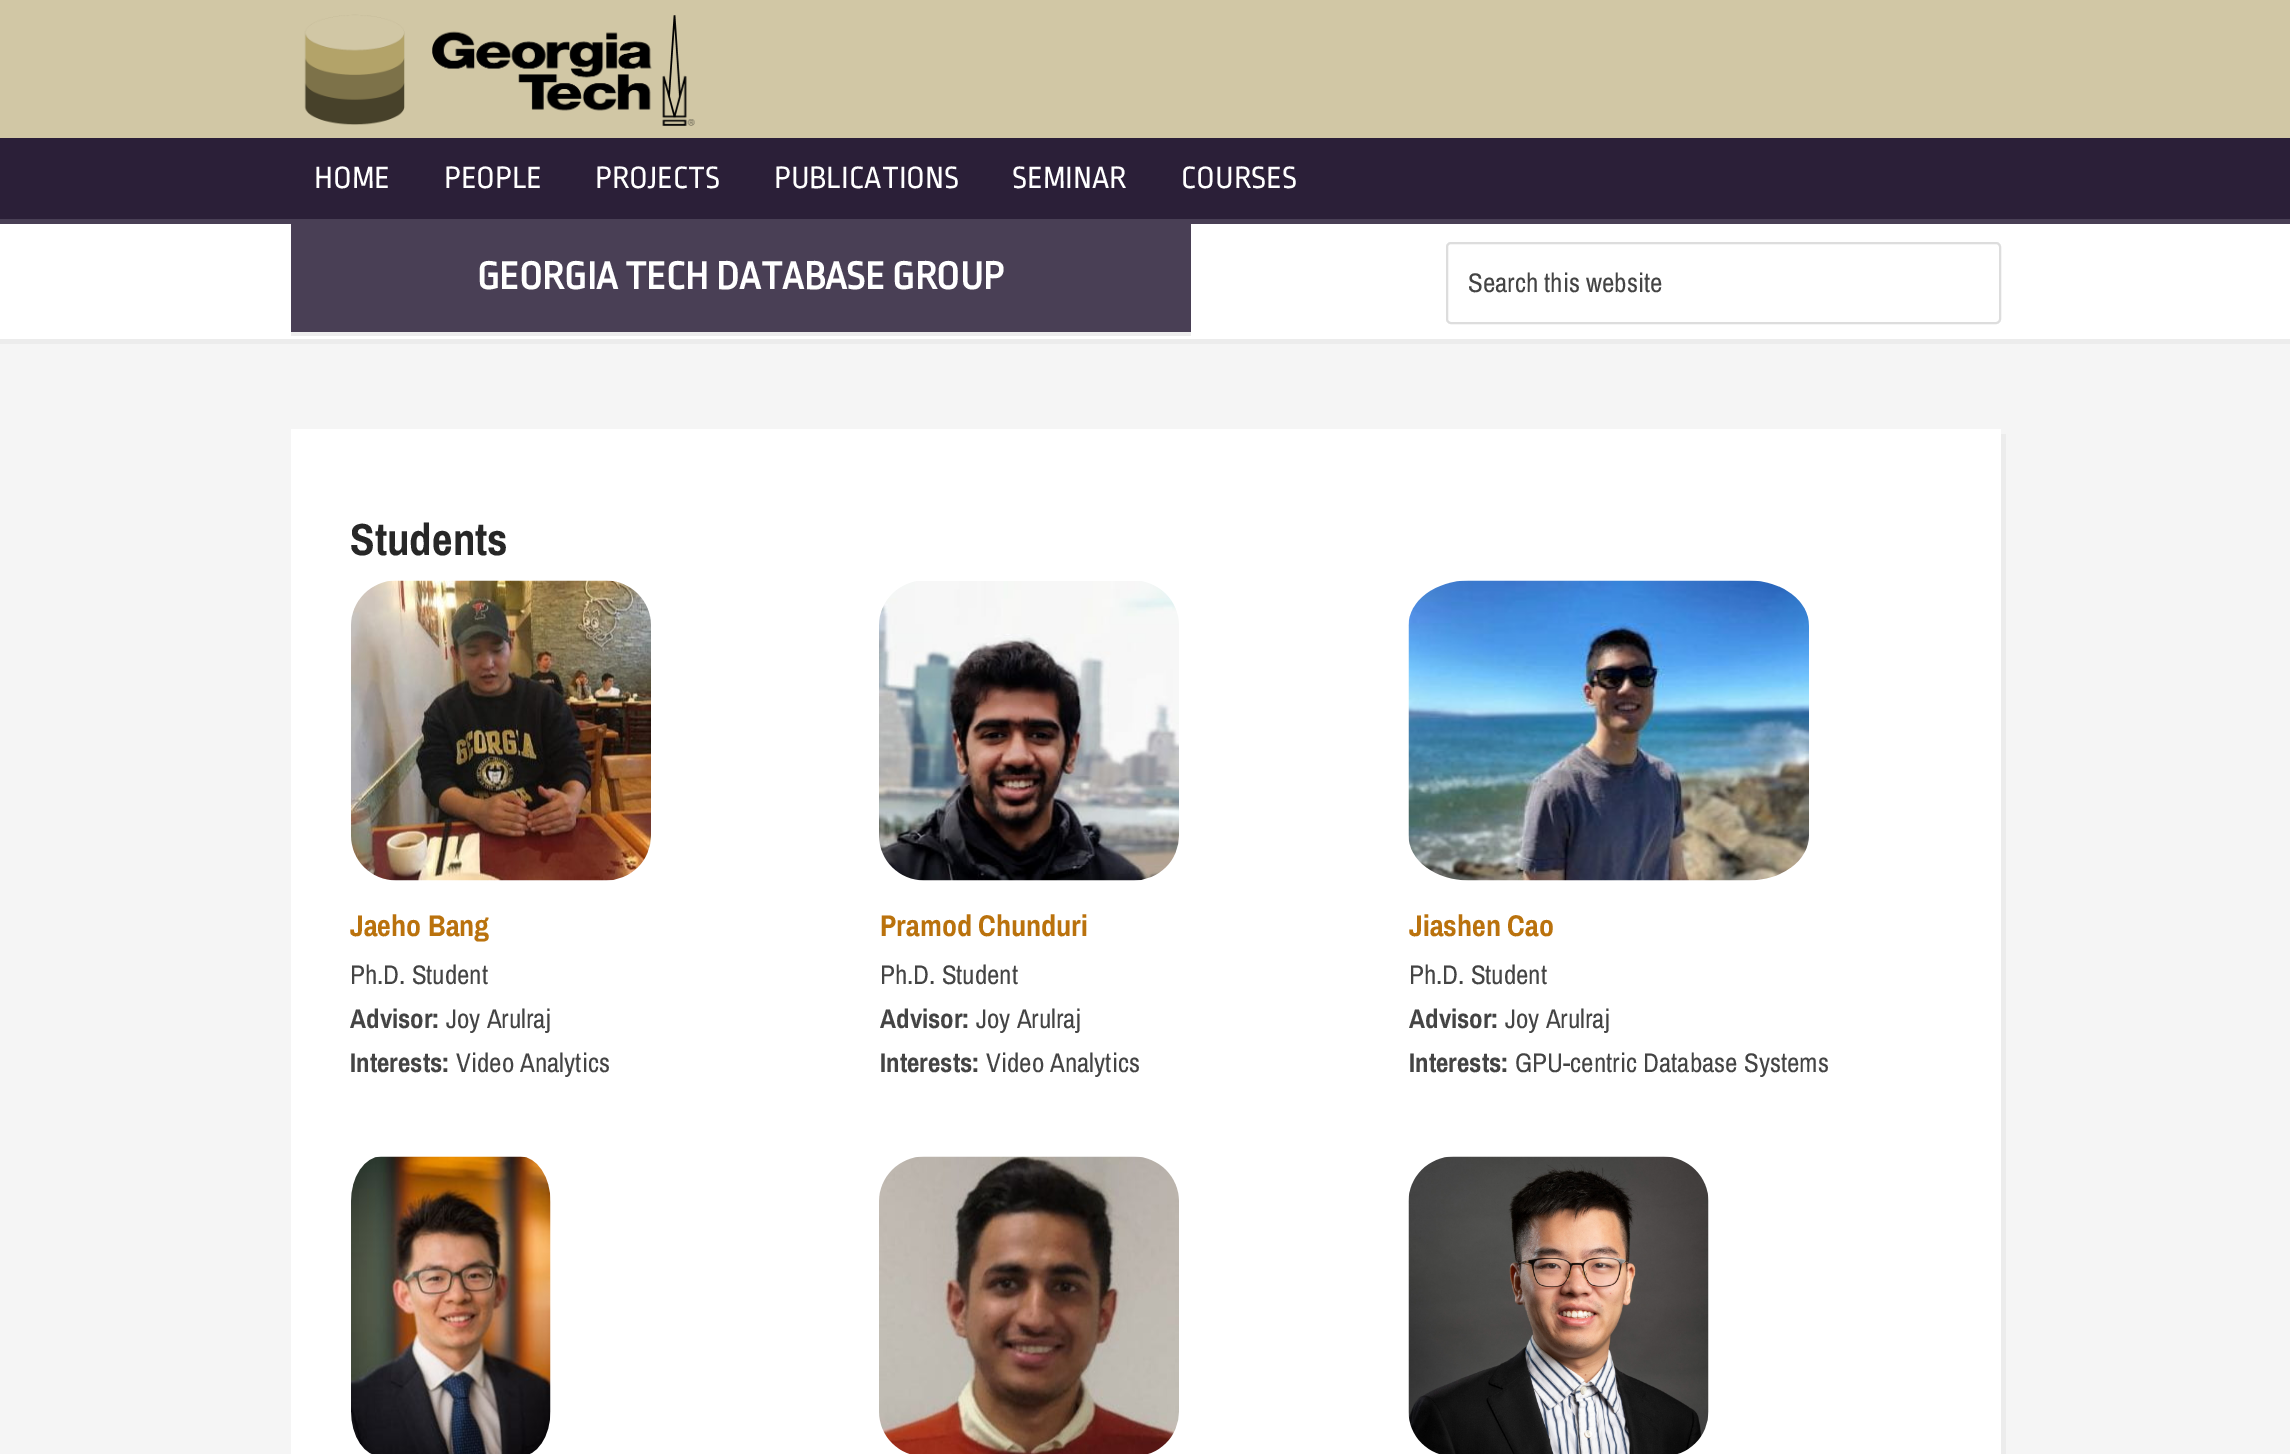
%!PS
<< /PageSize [2290 1454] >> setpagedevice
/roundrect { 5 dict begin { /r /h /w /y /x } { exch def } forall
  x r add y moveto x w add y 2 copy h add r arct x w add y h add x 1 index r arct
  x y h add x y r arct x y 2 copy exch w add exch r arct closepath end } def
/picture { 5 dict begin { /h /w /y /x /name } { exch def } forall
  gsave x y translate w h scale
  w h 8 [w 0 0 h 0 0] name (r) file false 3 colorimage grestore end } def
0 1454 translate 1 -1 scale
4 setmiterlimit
0.961 setgray
0 0 2290 1454 rectfill
0.82 0.78 0.647 setrgbcolor
0 0 2290 138 rectfill
(img1.rgb) 304 14 101 111 picture
(img2.rgb) 432 15 263 111 picture
0.169 0.122 0.22 setrgbcolor
0 138 2290 81 rectfill
/RopaSans-Regular [32.5 0 0 -32.5 0 0] selectfont
1 setgray
314 188 moveto (HOME) show
444 188 moveto (PEOPLE) show
595 188 moveto (PROJECTS) show
774 188 moveto (PUBLICATIONS) show
1012 188 moveto (SEMINAR) show
1181 188 moveto (COURSES) show
0.925 setgray
newpath 0 339 moveto 0 344 lineto 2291 344 lineto 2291 224 lineto 2290 224 lineto 2290 339 lineto closepath fill
1 setgray
0 224 2290 115 rectfill
0.286 0.247 0.333 setrgbcolor
0 219 2290 5 rectfill
0.929 setgray
291 332 900 4 rectfill
0.286 0.247 0.333 setrgbcolor
291 224 900 108 rectfill
/RopaSans-Bold [40.5 0 0 -40.5 0 0] selectfont
1 setgray
477 289 moveto (GEORGIA TECH DATABASE GROUP) show
0.867 setgray
2 setlinewidth
1447 243 553 80 4 roundrect stroke
/ArchivoNarrow-Regular [27 0 0 -27 0 0] selectfont
0.267 setgray
1468 292 moveto (Search this website) show
0.925 setgray
newpath 296 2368 moveto 296 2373 lineto 2006 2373 lineto 2006 434 lineto 2001 434 lineto 2001 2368 lineto closepath fill
1 setgray
291 429 1710 1025 rectfill
/ArchivoNarrow-Bold [45 0 0 -45 0 0] selectfont
0.153 setgray
350 555 moveto (Students) show
(img3.rgb) 351 580 300 301 picture
/ArchivoNarrow-Bold [30 0 0 -30 0 0] selectfont
0.729 0.447 0.051 setrgbcolor
350 936 moveto (Jaeho Bang) show
/ArchivoNarrow-Regular [27 0 0 -27 0 0] selectfont
0.267 setgray
350 984 moveto (Ph.D. Student) show
/ArchivoNarrow-Bold [27 0 0 -27 0 0] selectfont
350 1028 moveto (Advisor:) show
/ArchivoNarrow-Regular [27 0 0 -27 0 0] selectfont
446 1028 moveto (Joy Arulraj) show
/ArchivoNarrow-Bold [27 0 0 -27 0 0] selectfont
350 1072 moveto (Interests:) show
/ArchivoNarrow-Regular [27 0 0 -27 0 0] selectfont
456 1072 moveto (Video Analytics) show
(img4.rgb) 879 581 300 300 picture
/ArchivoNarrow-Bold [30 0 0 -30 0 0] selectfont
0.729 0.447 0.051 setrgbcolor
880 936 moveto (Pramod Chunduri) show
/ArchivoNarrow-Regular [27 0 0 -27 0 0] selectfont
0.267 setgray
880 984 moveto (Ph.D. Student) show
/ArchivoNarrow-Bold [27 0 0 -27 0 0] selectfont
880 1028 moveto (Advisor:) show
/ArchivoNarrow-Regular [27 0 0 -27 0 0] selectfont
976 1028 moveto (Joy Arulraj) show
/ArchivoNarrow-Bold [27 0 0 -27 0 0] selectfont
880 1072 moveto (Interests:) show
/ArchivoNarrow-Regular [27 0 0 -27 0 0] selectfont
986 1072 moveto (Video Analytics) show
(img5.rgb) 1408 580 401 301 picture
/ArchivoNarrow-Bold [30 0 0 -30 0 0] selectfont
0.729 0.447 0.051 setrgbcolor
1409 936 moveto (Jiashen Cao) show
/ArchivoNarrow-Regular [27 0 0 -27 0 0] selectfont
0.267 setgray
1409 984 moveto (Ph.D. Student) show
/ArchivoNarrow-Bold [27 0 0 -27 0 0] selectfont
1409 1028 moveto (Advisor:) show
/ArchivoNarrow-Regular [27 0 0 -27 0 0] selectfont
1505 1028 moveto (Joy Arulraj) show
/ArchivoNarrow-Bold [27 0 0 -27 0 0] selectfont
1409 1072 moveto (Interests:) show
/ArchivoNarrow-Regular [27 0 0 -27 0 0] selectfont
1515 1072 moveto (GPU-centric Database Systems) show
(img6.rgb) 351 1156 200 298 picture
(img7.rgb) 879 1156 300 298 picture
(img8.rgb) 1408 1156 301 298 picture
showpage
